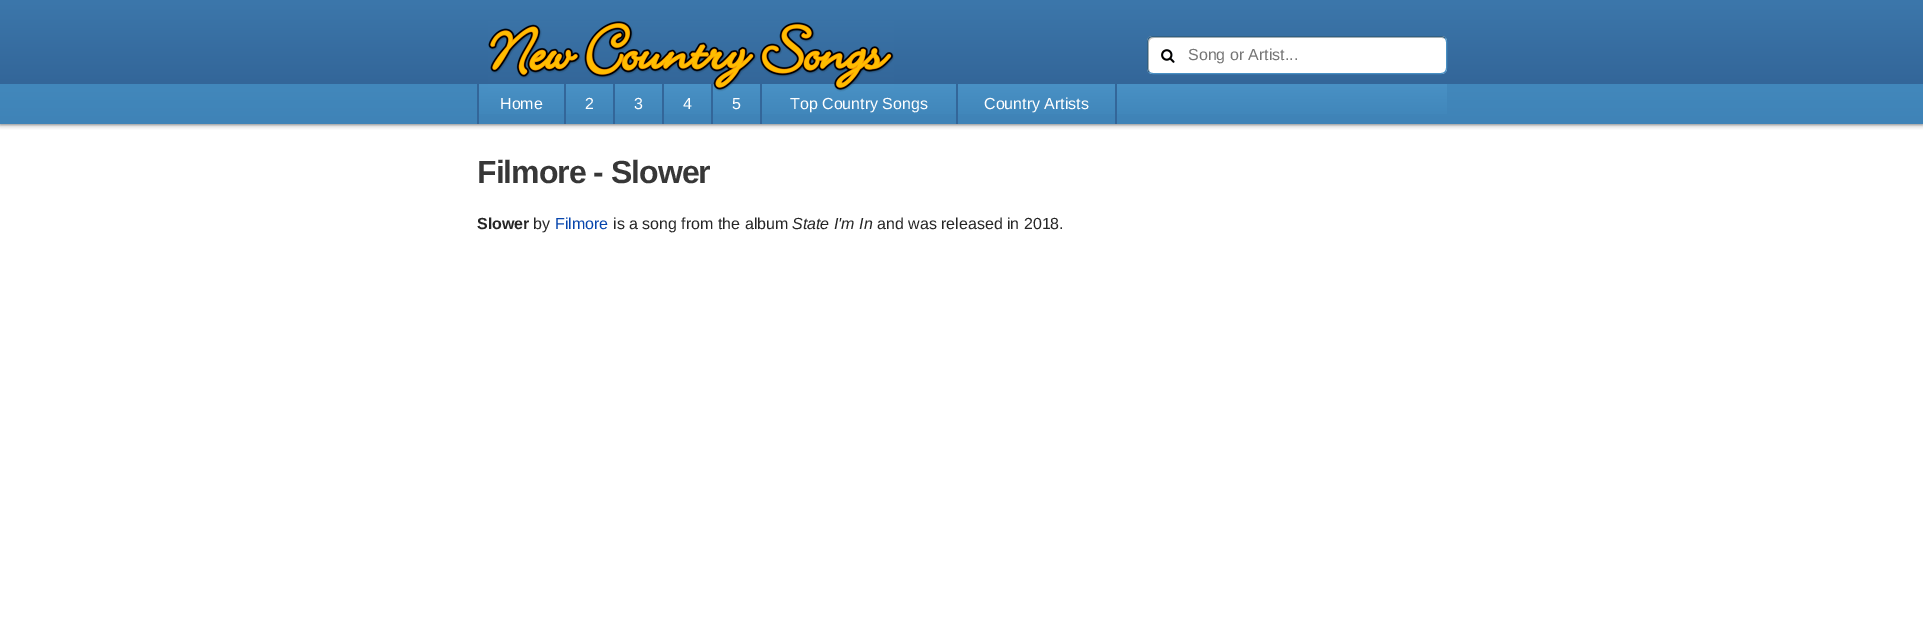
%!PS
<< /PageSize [1923 621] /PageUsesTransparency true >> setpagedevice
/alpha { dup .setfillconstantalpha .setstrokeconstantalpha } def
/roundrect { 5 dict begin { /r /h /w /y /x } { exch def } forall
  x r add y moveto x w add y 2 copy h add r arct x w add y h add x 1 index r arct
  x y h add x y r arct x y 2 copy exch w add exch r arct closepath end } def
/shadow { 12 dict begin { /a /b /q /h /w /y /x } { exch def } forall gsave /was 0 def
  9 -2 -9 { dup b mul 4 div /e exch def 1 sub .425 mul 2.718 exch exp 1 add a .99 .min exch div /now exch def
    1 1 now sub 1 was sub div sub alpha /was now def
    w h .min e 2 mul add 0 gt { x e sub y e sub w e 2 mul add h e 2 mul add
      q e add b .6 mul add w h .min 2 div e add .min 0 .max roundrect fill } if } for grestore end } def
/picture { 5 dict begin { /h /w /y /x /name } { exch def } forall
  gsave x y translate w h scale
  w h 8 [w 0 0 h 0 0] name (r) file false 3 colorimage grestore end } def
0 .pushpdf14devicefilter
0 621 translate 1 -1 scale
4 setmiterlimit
1 setgray
0 0 1923 621 rectfill
0 setgray
0 0 1923 124 0 2.5 0.7 shadow
gsave newpath 0 84 moveto 1923 84 lineto 1923 124 lineto 0 124 lineto closepath clip newpath
<< /ShadingType 2 /ColorSpace /DeviceRGB /Coords [962 0 962 124] /Extend [true true] /Function << /FunctionType 2 /Domain [0 1] /C0 [0.286 0.569 0.773] /C1 [0.247 0.514 0.718] /N 1 >> >> shfill grestore
gsave newpath 0 0 moveto 1923 0 lineto 1923 84 lineto 0 84 lineto closepath clip newpath
<< /ShadingType 2 /ColorSpace /DeviceRGB /Coords [962 0 962 84] /Extend [true true] /Function << /FunctionType 2 /Domain [0 1] /C0 [0.235 0.467 0.671] /C1 [0.2 0.4 0.6] /N 1 >> >> shfill grestore
gsave newpath 479 84 moveto 564 84 lineto 564 114 lineto 479 114 lineto closepath clip newpath
<< /ShadingType 2 /ColorSpace /DeviceRGB /Coords [523 84 523 124] /Extend [true true] /Function << /FunctionType 2 /Domain [0 1] /C0 [0.286 0.569 0.773] /C1 [0.247 0.514 0.718] /N 1 >> >> shfill grestore
0.2 0.4 0.6 setrgbcolor
564 84 2 40 rectfill
gsave newpath 566 84 moveto 613 84 lineto 613 114 lineto 566 114 lineto closepath clip newpath
<< /ShadingType 2 /ColorSpace /DeviceRGB /Coords [591 84 591 124] /Extend [true true] /Function << /FunctionType 2 /Domain [0 1] /C0 [0.286 0.569 0.773] /C1 [0.247 0.514 0.718] /N 1 >> >> shfill grestore
613 84 2 40 rectfill
gsave newpath 615 84 moveto 662 84 lineto 662 114 lineto 615 114 lineto closepath clip newpath
<< /ShadingType 2 /ColorSpace /DeviceRGB /Coords [640 84 640 124] /Extend [true true] /Function << /FunctionType 2 /Domain [0 1] /C0 [0.286 0.569 0.773] /C1 [0.247 0.514 0.718] /N 1 >> >> shfill grestore
662 84 2 40 rectfill
gsave newpath 664 84 moveto 711 84 lineto 711 114 lineto 664 114 lineto closepath clip newpath
<< /ShadingType 2 /ColorSpace /DeviceRGB /Coords [689 84 689 124] /Extend [true true] /Function << /FunctionType 2 /Domain [0 1] /C0 [0.286 0.569 0.773] /C1 [0.247 0.514 0.718] /N 1 >> >> shfill grestore
711 84 2 40 rectfill
gsave newpath 713 84 moveto 760 84 lineto 760 114 lineto 713 114 lineto closepath clip newpath
<< /ShadingType 2 /ColorSpace /DeviceRGB /Coords [738 84 738 124] /Extend [true true] /Function << /FunctionType 2 /Domain [0 1] /C0 [0.286 0.569 0.773] /C1 [0.247 0.514 0.718] /N 1 >> >> shfill grestore
760 84 2 40 rectfill
gsave newpath 762 84 moveto 956 84 lineto 956 114 lineto 762 114 lineto closepath clip newpath
<< /ShadingType 2 /ColorSpace /DeviceRGB /Coords [860 84 860 124] /Extend [true true] /Function << /FunctionType 2 /Domain [0 1] /C0 [0.286 0.569 0.773] /C1 [0.247 0.514 0.718] /N 1 >> >> shfill grestore
(img1.rgb) 488 21 406 71 picture
1 setgray
1147 36 300 38 6 roundrect fill
(img2.rgb) 1161 49 14 14 picture
0.808 0.796 0.773 setrgbcolor
newpath 1154 38 moveto 1442 38 lineto 1445 39 lineto 1444 38 1442 37 1441 37 curveto 1153 37 lineto 1150 37 1148 39 1148 42 curveto 1148 68 lineto 1148 69 1149 71 1150 72 curveto 1149 69 lineto 1149 43 lineto 1149 40 1151 38 1154 38 curveto closepath fill
0.286 0.565 0.769 setrgbcolor
newpath 1445 38 moveto 1446 39 1446.5 40.5 1446.5 42 curveto 1446.5 68 lineto 1446.5 69.5 1446 71 1445 72 curveto 1444 73 1442.5 73.5 1441 73.5 curveto 1153 73.5 lineto 1151.5 73.5 1150 73 1149 72 curveto stroke
0.192 0.376 0.514 setrgbcolor
newpath 1149 72 moveto 1148 71 1147.5 69.5 1147.5 68 curveto 1147.5 42 lineto 1147.5 40.5 1148 39 1149 38 curveto 1150 37 1151.5 36.5 1153 36.5 curveto 1441 36.5 lineto 1442.5 36.5 1444 37 1445 38 curveto stroke
/LiberationSans-Regular [16 0 0 -16 0 0] selectfont
0.459 setgray
1188 60 moveto (Song or Artist...) show
0.2 0.4 0.6 setrgbcolor
477 84 2 40 rectfill
1 setgray
500 109 moveto (Home) show
585 109 moveto (2) show
634 109 moveto (3) show
683 109 moveto (4) show
732 109 moveto (5) show
0.2 0.4 0.6 setrgbcolor
956 84 2 40 rectfill
1 setgray
790 109 moveto (Top Country Songs) show
gsave newpath 958 84 moveto 1115 84 lineto 1115 114 lineto 958 114 lineto closepath clip newpath
<< /ShadingType 2 /ColorSpace /DeviceRGB /Coords [1038 84 1038 124] /Extend [true true] /Function << /FunctionType 2 /Domain [0 1] /C0 [0.286 0.569 0.773] /C1 [0.247 0.514 0.718] /N 1 >> >> shfill grestore
0.2 0.4 0.6 setrgbcolor
1115 84 2 40 rectfill
1 setgray
984 109 moveto (Country Artists) show
gsave newpath 1117 84 moveto 1447 84 lineto 1447 114 lineto 1117 114 lineto closepath clip newpath
<< /ShadingType 2 /ColorSpace /DeviceRGB /Coords [1282 84 1282 124] /Extend [true true] /Function << /FunctionType 2 /Domain [0 1] /C0 [0.286 0.569 0.773] /C1 [0.247 0.514 0.718] /N 1 >> >> shfill grestore
/LiberationSans-Bold [32 0 0 -32 0 0] selectfont
0.216 setgray
477 183 moveto -1 0 (Filmore - Slower) ashow
/LiberationSans-Bold [16 0 0 -16 0 0] selectfont
0.149 setgray
477 229 moveto (Slower) show
/LiberationSans-Regular [16 0 0 -16 0 0] selectfont
533 229 moveto (by) show
0.024 0.271 0.678 setrgbcolor
555 229 moveto (Filmore) show
0.149 setgray
613 229 moveto (is a song from the album) show
/LiberationSans-Italic [16 0 0 -16 0 0] selectfont
792 229 moveto (State I'm In) show
/LiberationSans-Regular [16 0 0 -16 0 0] selectfont
877 229 moveto (and was released in 2018.) show
.poppdf14devicefilter showpage
